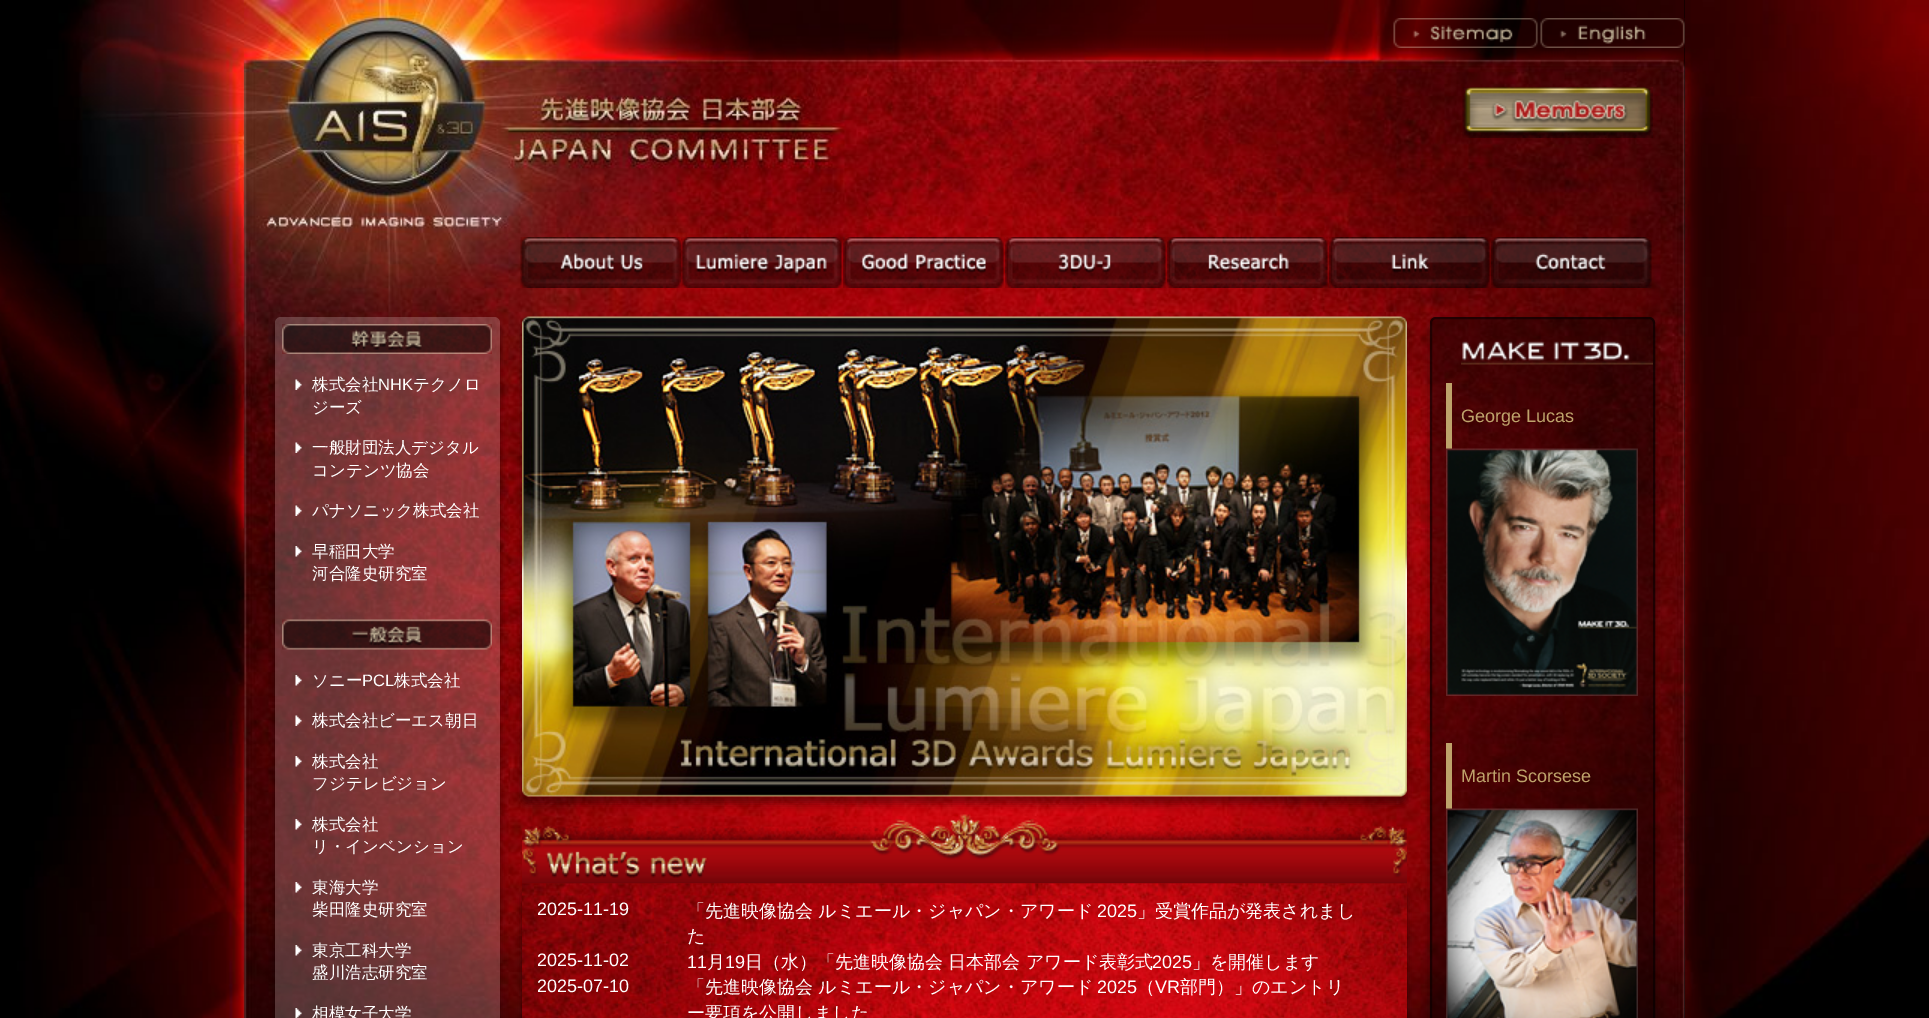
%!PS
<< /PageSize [1929 1018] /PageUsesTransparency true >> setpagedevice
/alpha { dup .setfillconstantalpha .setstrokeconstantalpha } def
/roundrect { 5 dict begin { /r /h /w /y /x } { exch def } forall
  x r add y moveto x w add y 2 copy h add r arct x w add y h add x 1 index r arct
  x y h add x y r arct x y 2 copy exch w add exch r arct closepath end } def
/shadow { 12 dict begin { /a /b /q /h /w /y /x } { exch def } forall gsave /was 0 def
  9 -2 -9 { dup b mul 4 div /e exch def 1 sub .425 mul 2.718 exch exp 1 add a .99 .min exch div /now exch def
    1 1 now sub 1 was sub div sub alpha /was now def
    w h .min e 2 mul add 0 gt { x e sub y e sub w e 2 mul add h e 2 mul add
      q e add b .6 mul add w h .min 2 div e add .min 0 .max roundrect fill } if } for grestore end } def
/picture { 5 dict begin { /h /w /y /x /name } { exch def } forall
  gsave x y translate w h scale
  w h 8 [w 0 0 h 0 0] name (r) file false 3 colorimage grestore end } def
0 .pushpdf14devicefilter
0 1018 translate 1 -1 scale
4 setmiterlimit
1 setgray
0 0 1929 1018 rectfill
(img1.rgb) 0 0 1929 1018 picture
0 setgray
1684 0 1 1018 rectfill
(img2.rgb) 244 0 1441 1018 picture
(img3.rgb) 244 0 623 233 picture
(img4.rgb) 1393 18 145 30 picture
(img5.rgb) 1540 18 145 30 picture
(img6.rgb) 1462 87 191 51 picture
(img7.rgb) 520 237 161 51 picture
(img8.rgb) 681 237 161 51 picture
(img9.rgb) 843 237 161 51 picture
(img10.rgb) 1005 237 161 51 picture
(img11.rgb) 1167 237 161 51 picture
(img12.rgb) 1329 237 161 51 picture
(img13.rgb) 1491 237 161 51 picture
gsave
newpath 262 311 moveto 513 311 lineto 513 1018 lineto 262 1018 lineto closepath 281 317 moveto 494 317 lineto 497.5 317 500 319.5 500 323 curveto 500 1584 lineto 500 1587.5 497.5 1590 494 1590 curveto 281 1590 lineto 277.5 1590 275 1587.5 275 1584 curveto 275 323 lineto 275 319.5 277.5 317 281 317 curveto closepath eoclip newpath
275 324 225 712 6 4 0.4 shadow
grestore
0.2 alpha
1 setgray
275 317 225 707 6 roundrect fill
1 alpha
(img14.rgb) 282 324 210 30 picture
(img15.rgb) 295 379 7 11 picture
/WenQuanYiZenHei-Medium [16.5 0 0 -16.5 0 0] selectfont
312 390 moveto (株式会社) show
/LiberationSans-Regular [16.5 0 0 -16.5 0 0] selectfont
378 390 moveto (NHK) show
/WenQuanYiZenHei-Medium [16.5 0 0 -16.5 0 0] selectfont
413 390 moveto (テクノロ) show
312 413 moveto (ジーズ) show
(img16.rgb) 295 442 7 11 picture
312 453 moveto (一般財団法人デジタル) show
312 476 moveto (コンテンツ協会) show
(img17.rgb) 295 505 7 11 picture
312 516 moveto (パナソニック株式会社) show
(img18.rgb) 295 546 7 11 picture
312 557 moveto (早稲田大学) show
312 579 moveto (河合隆史研究室) show
(img19.rgb) 282 619 210 31 picture
(img20.rgb) 295 675 7 11 picture
312 686 moveto (ソニー) show
/LiberationSans-Regular [16.5 0 0 -16.5 0 0] selectfont
362 686 moveto (PCL) show
/WenQuanYiZenHei-Medium [16.5 0 0 -16.5 0 0] selectfont
394 686 moveto (株式会社) show
(img21.rgb) 295 715 7 11 picture
312 726 moveto (株式会社ビーエス朝日) show
(img22.rgb) 295 756 7 11 picture
312 767 moveto (株式会社) show
312 789 moveto (フジテレビジョン) show
(img23.rgb) 295 819 7 11 picture
312 830 moveto (株式会社) show
312 852 moveto (リ・インベンション) show
(img24.rgb) 295 882 7 11 picture
312 893 moveto (東海大学) show
312 915 moveto (柴田隆史研究室) show
(img25.rgb) 295 945 7 11 picture
312 956 moveto (東京工科大学) show
312 978 moveto (盛川浩志研究室) show
(img26.rgb) 295 1008 7 10 picture
312 1019 moveto (相模女子大学) show
gsave
newpath 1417 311 moveto 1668 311 lineto 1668 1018 lineto 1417 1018 lineto closepath 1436 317 moveto 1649 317 lineto 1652.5 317 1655 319.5 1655 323 curveto 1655 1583 lineto 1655 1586.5 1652.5 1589 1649 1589 curveto 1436 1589 lineto 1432.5 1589 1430 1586.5 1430 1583 curveto 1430 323 lineto 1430 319.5 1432.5 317 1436 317 curveto closepath eoclip newpath
0 setgray
1430 324 225 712 6 4 0.4 shadow
grestore
0.4 alpha
0 setgray
1430 317 225 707 6 roundrect fill
0.5 alpha
2 setlinewidth
1431 318 223 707 5 roundrect stroke
1 alpha
(img27.rgb) 1461 341 192 24 picture
0.745 0.639 0.42 setrgbcolor
1446 383 6 66 rectfill
/LiberationSans-Regular [18 0 0 -18 0 0] selectfont
1461 422 moveto (George Lucas) show
(img28.rgb) 1446 448 192 248 picture
1446 743 6 66 rectfill
1461 782 moveto (Martin Scorsese) show
(img29.rgb) 1446 808 192 210 picture
0 setgray
522 324 885 480 6 4 0.4 shadow
(img30.rgb) 521 316 886 481 picture
(img31.rgb) 522 814 885 70 picture
522 891 885 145 6 4 0.4 shadow
(img32.rgb) 522 883 885 135 picture
1 setgray
537 915 moveto (2025-11-19) show
/WenQuanYiZenHei-Medium [18 0 0 -18 0 0] selectfont
687 917 moveto (「先進映像協会 ルミエール・ジャパン・アワード) show
/LiberationSans-Regular [18 0 0 -18 0 0] selectfont
1097 917 moveto (2025) show
/WenQuanYiZenHei-Medium [18 0 0 -18 0 0] selectfont
1137 917 moveto (」受賞作品が発表されまし) show
687 942 moveto (た) show
/LiberationSans-Regular [18 0 0 -18 0 0] selectfont
537 966 moveto (2025-11-02) show
687 968 moveto (11) show
/WenQuanYiZenHei-Medium [18 0 0 -18 0 0] selectfont
707 968 moveto (月) show
/LiberationSans-Regular [18 0 0 -18 0 0] selectfont
725 968 moveto (19) show
/WenQuanYiZenHei-Medium [18 0 0 -18 0 0] selectfont
745 968 moveto (日（水）「先進映像協会 日本部会 アワード表彰式) show
/LiberationSans-Regular [18 0 0 -18 0 0] selectfont
1152 968 moveto (2025) show
/WenQuanYiZenHei-Medium [18 0 0 -18 0 0] selectfont
1192 968 moveto (」を開催します) show
/LiberationSans-Regular [18 0 0 -18 0 0] selectfont
537 992 moveto (2025-07-10) show
/WenQuanYiZenHei-Medium [18 0 0 -18 0 0] selectfont
687 993 moveto (「先進映像協会 ルミエール・ジャパン・アワード) show
/LiberationSans-Regular [18 0 0 -18 0 0] selectfont
1097 993 moveto (2025) show
/WenQuanYiZenHei-Medium [18 0 0 -18 0 0] selectfont
1137 993 moveto (（) show
/LiberationSans-Regular [18 0 0 -18 0 0] selectfont
1155 993 moveto (VR) show
/WenQuanYiZenHei-Medium [18 0 0 -18 0 0] selectfont
1180 993 moveto (部門）」のエントリ) show
687 1019 moveto (ー要項を公開しました) show
.poppdf14devicefilter showpage
